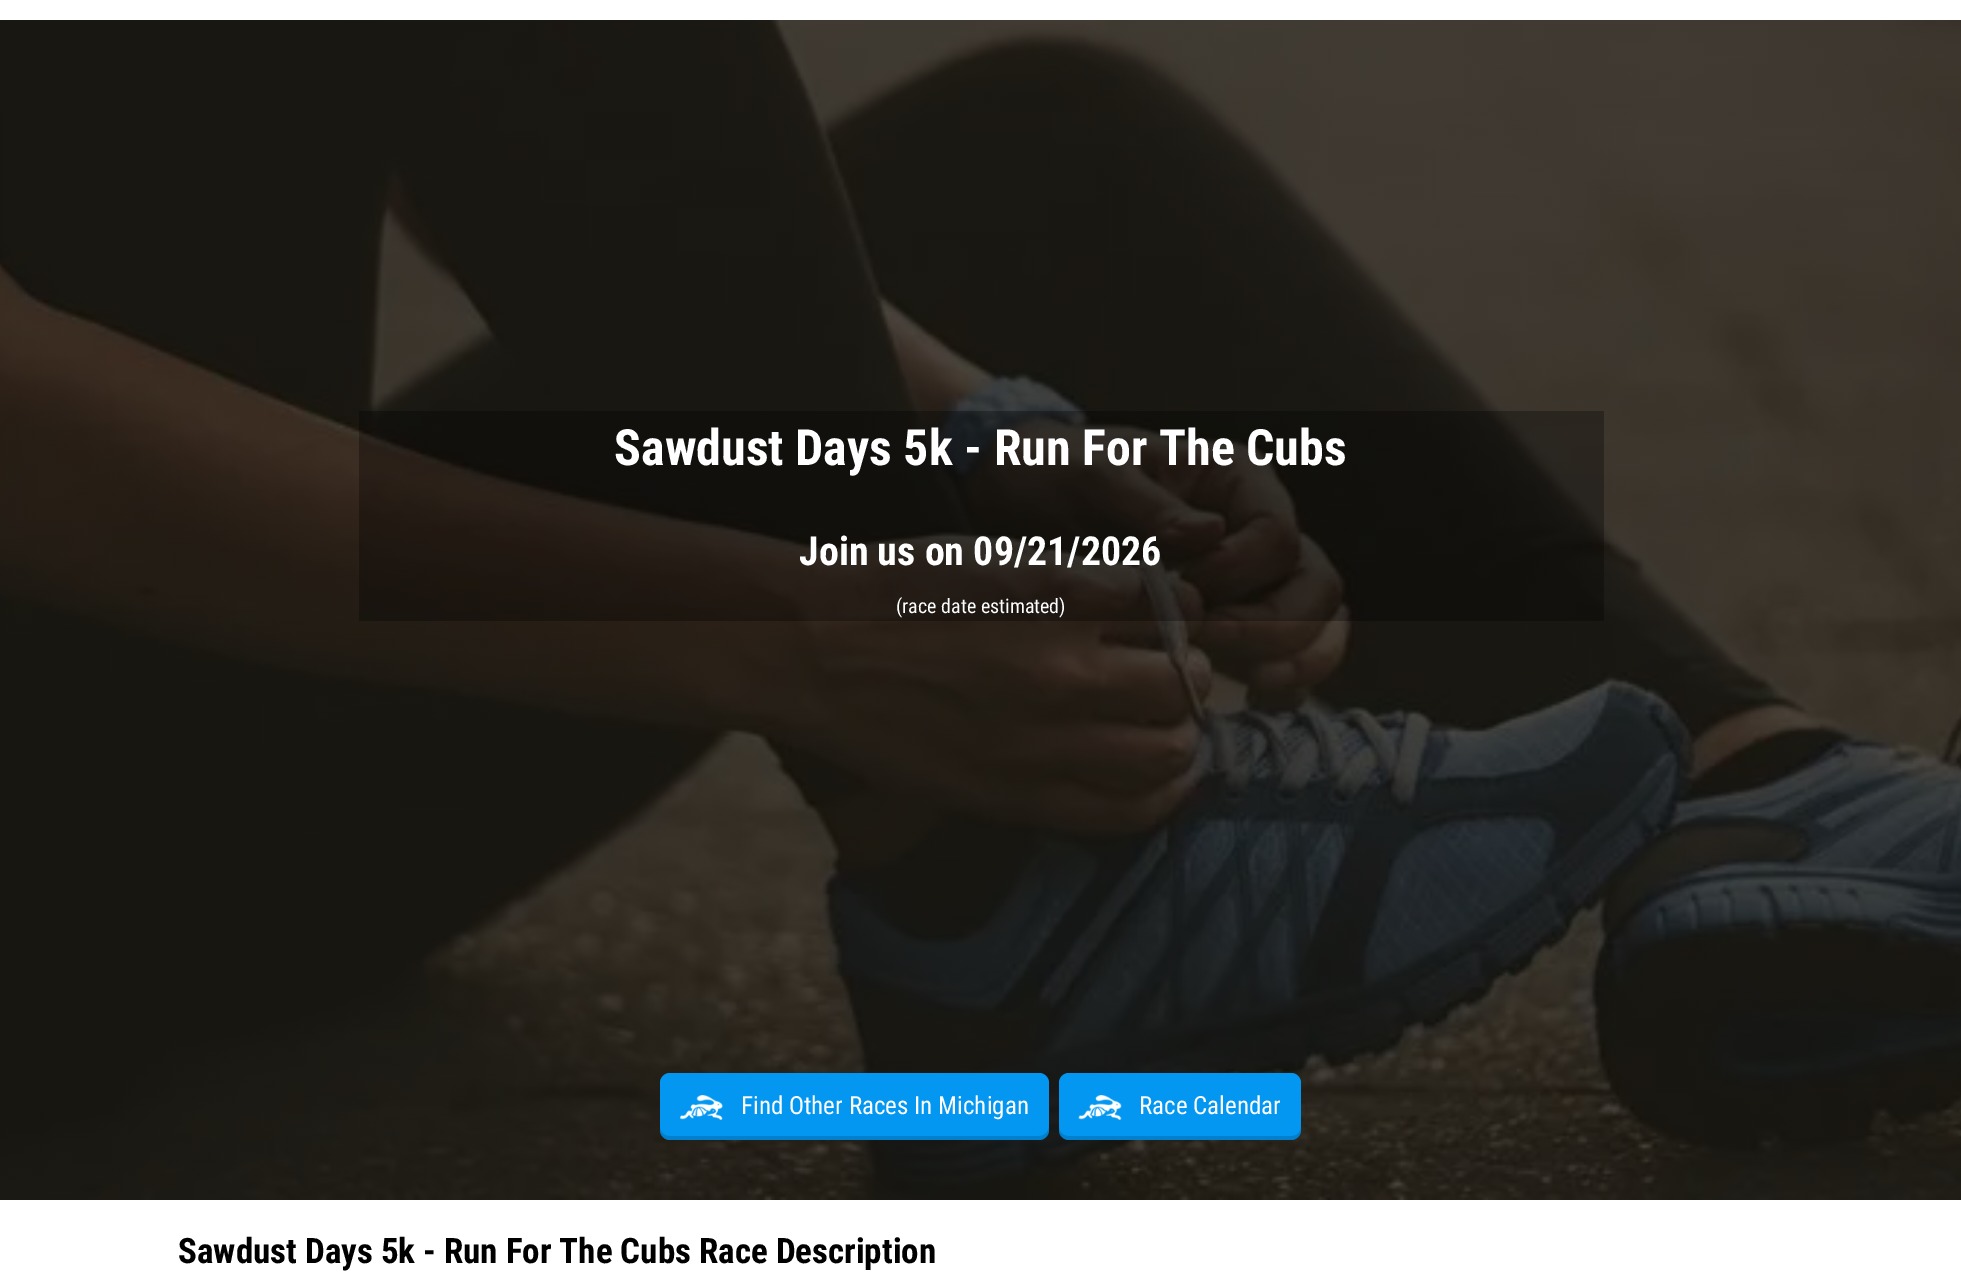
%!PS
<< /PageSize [1961 1286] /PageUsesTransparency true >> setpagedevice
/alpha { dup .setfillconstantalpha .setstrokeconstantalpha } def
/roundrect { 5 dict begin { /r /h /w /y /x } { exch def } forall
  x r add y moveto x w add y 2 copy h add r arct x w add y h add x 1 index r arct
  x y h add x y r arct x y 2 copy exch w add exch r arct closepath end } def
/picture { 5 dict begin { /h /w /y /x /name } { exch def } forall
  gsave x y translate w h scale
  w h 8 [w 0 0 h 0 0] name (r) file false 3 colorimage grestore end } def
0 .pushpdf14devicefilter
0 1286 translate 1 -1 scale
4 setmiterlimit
1 setgray
0 0 1961 1286 rectfill
(img1.rgb) 0 20 1961 1180 picture
0.3 alpha
0 setgray
359 411 1245 210 rectfill
/RobotoCondensed-Bold [50 0 0 -50 0 0] selectfont
1 alpha
1 setgray
614 465 moveto (Sawdust Days 5k - Run For The Cubs) show
/RobotoCondensed-Bold [40 0 0 -40 0 0] selectfont
799 565 moveto (Join us on 09/21/2026) show
/RobotoCondensed-Regular [20 0 0 -20 0 0] selectfont
896 613 moveto (\(race date estimated\)) show
0.016 0.592 0.945 setrgbcolor
660 1073 389 67 10 roundrect fill
0.15 alpha
0 setgray
newpath 660 1126 moveto 660 1130 lineto 660 1136 664 1140 670 1140 curveto 1039 1140 lineto 1045 1140 1049 1136 1049 1130 curveto 1049 1126 lineto 1049 1132 1044 1136 1039 1136 curveto 670 1136 lineto 664 1136 660 1132 660 1126 curveto closepath fill
1 alpha
(img2.rgb) 680 1095 43 25 picture
/RobotoCondensed-Regular [25 0 0 -25 0 0] selectfont
1 setgray
741 1114 moveto (Find Other Races In Michigan) show
0.016 0.592 0.945 setrgbcolor
1059 1073 242 67 10 roundrect fill
0.15 alpha
0 setgray
newpath 1059 1126 moveto 1059 1130 lineto 1059 1136 1063 1140 1069 1140 curveto 1291 1140 lineto 1297 1140 1301 1136 1301 1130 curveto 1301 1126 lineto 1301 1132 1297 1136 1291 1136 curveto 1069 1136 lineto 1063 1136 1059 1132 1059 1126 curveto closepath fill
1 alpha
(img3.rgb) 1078 1095 44 25 picture
1 setgray
1139 1114 moveto (Race Calendar) show
/RobotoCondensed-Bold [35 0 0 -35 0 0] selectfont
0 setgray
178 1263 moveto (Sawdust Days 5k - Run For The Cubs Race Description) show
.poppdf14devicefilter showpage
